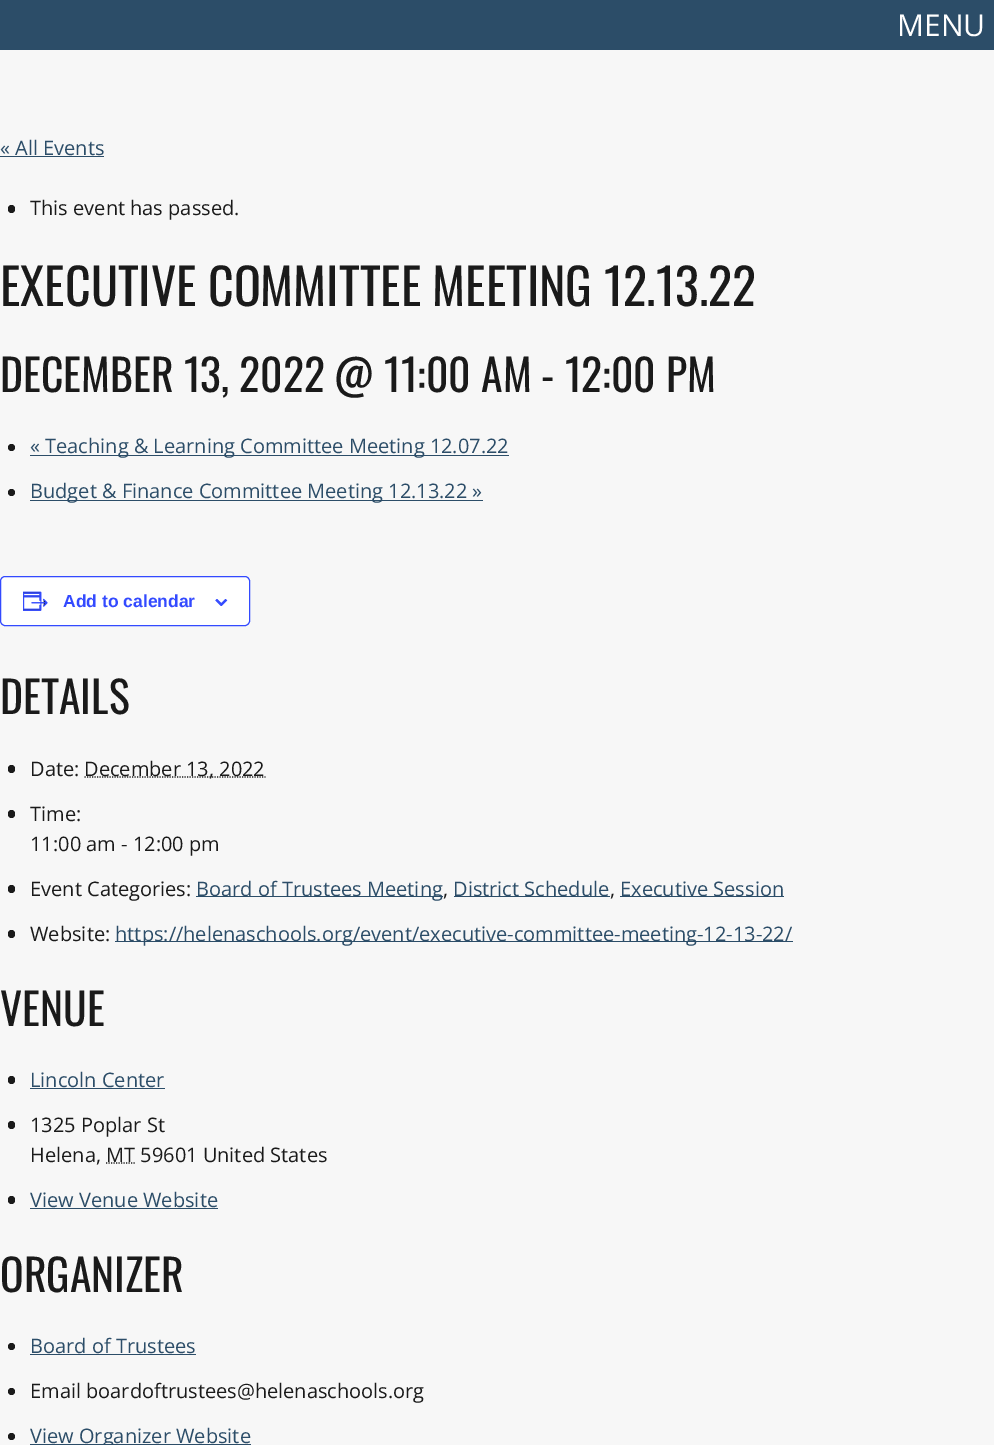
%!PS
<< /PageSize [994 1445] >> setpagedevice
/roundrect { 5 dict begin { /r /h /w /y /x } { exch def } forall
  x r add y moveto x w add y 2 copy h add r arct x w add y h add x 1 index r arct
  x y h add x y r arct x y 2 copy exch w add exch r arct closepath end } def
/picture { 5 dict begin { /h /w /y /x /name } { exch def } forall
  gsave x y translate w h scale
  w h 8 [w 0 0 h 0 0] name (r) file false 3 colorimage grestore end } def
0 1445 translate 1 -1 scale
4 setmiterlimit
0.969 setgray
0 0 994 1445 rectfill
0.173 0.302 0.408 setrgbcolor
0 0 994 50 rectfill
/OpenSans-Regular [30 0 0 -30 0 0] selectfont
1 setgray
897 36 moveto (MENU) show
/OpenSans-Regular [20 0 0 -20 0 0] selectfont
0.173 0.302 0.408 setrgbcolor
0 155 moveto (« All Events) show
0 156 104 1 rectfill
0.102 setgray
8 205 7 8 3.5 roundrect fill
30 215 moveto (This event has passed.) show
/Oswald-Regular [50 0 0 -50 0 0] selectfont
0 306 moveto (EXECUTIVE COMMITTEE MEETING 12.13.22) show
/Oswald-Regular [43.75 0 0 -43.75 0 0] selectfont
0 392 moveto (DECEMBER 13, 2022 @ 11:00 AM - 12:00 PM) show
newpath 11.5 447.5 3.5 0 360 arc closepath fill
0.173 0.302 0.408 setrgbcolor
30 455 479 1 rectfill
/OpenSans-Regular [20 0 0 -20 0 0] selectfont
30 453 moveto (« Teaching & Learning Committee Meeting 12.07.22) show
0.102 setgray
newpath 11.5 492.5 3.5 0 360 arc closepath fill
0.173 0.302 0.408 setrgbcolor
30 500 453 1 rectfill
30 498 moveto (Budget & Finance Committee Meeting 12.13.22 ») show
1 setgray
0.5 576.5 249 49 4.5 roundrect gsave fill grestore
0.2 0.29 1 setrgbcolor
stroke
(img1.rgb) 23 591 25 20 picture
/LiberationSans-Bold [17.5 0 0 -17.5 0 0] selectfont
63 607 moveto (Add to calendar) show
(img2.rgb) 215 599 13 7 picture
/Oswald-Regular [43.75 0 0 -43.75 0 0] selectfont
0.102 setgray
0 714 moveto (DETAILS) show
8 765 7 8 3.5 roundrect fill
/OpenSans-Regular [20 0 0 -20 0 0] selectfont
30 776 moveto (Date:) show
1.2 setlinewidth
[1.25 1.25] 0 setdash
newpath 84.5 777 moveto 265.5 777 lineto stroke
84 776 moveto (December 13, 2022) show
8 810 7 8 3.5 roundrect fill
30 821 moveto (Time:) show
30 851 moveto (11:00 am - 12:00 pm) show
8 885 7 8 3.5 roundrect fill
30 896 moveto (Event Categories:) show
0.173 0.302 0.408 setrgbcolor
196 896 247 1 rectfill
196 896 moveto (Board of Trustees Meeting) show
454 896 156 1 rectfill
453 896 moveto (District Schedule) show
620 896 164 1 rectfill
620 896 moveto (Executive Session) show
0.102 setgray
443 896 moveto (,) show
610 896 moveto (,) show
8 930 7 8 3.5 roundrect fill
30 941 moveto (Website:) show
0.173 0.302 0.408 setrgbcolor
115 941 678 1 rectfill
115 941 moveto (https://helenaschools.org/event/executive-committee-meeting-12-13-22/) show
/Oswald-Regular [43.75 0 0 -43.75 0 0] selectfont
0.102 setgray
0 1026 moveto (VENUE) show
8 1076 7 8 3.5 roundrect fill
/OpenSans-Regular [20 0 0 -20 0 0] selectfont
0.173 0.302 0.408 setrgbcolor
30 1087 moveto (Lincoln Center) show
30 1088 135 1 rectfill
0.102 setgray
8 1121 7 8 3.5 roundrect fill
30 1132 moveto (1325 Poplar St) show
30 1162 moveto (Helena, MT 59601 United States) show
newpath 106 1163 moveto 135 1163 lineto stroke
8 1196 7 8 3.5 roundrect fill
0.173 0.302 0.408 setrgbcolor
30 1207 moveto (View Venue Website) show
30 1208 188 1 rectfill
/Oswald-Regular [43.75 0 0 -43.75 0 0] selectfont
0.102 setgray
0 1292 moveto (ORGANIZER) show
newpath 11.5 1346.5 3.5 0 360 arc closepath fill
/OpenSans-Regular [20 0 0 -20 0 0] selectfont
0.173 0.302 0.408 setrgbcolor
30 1353 moveto (Board of Trustees) show
30 1354 166 1 rectfill
0.102 setgray
newpath 11.5 1391.5 3.5 0 360 arc closepath fill
30 1398 moveto (Email boardoftrustees@helenaschools.org) show
newpath 11.5 1436.5 3.5 0 360 arc closepath fill
0.173 0.302 0.408 setrgbcolor
30 1444 221 1 rectfill
30 1443 moveto (View Organizer Website) show
showpage
